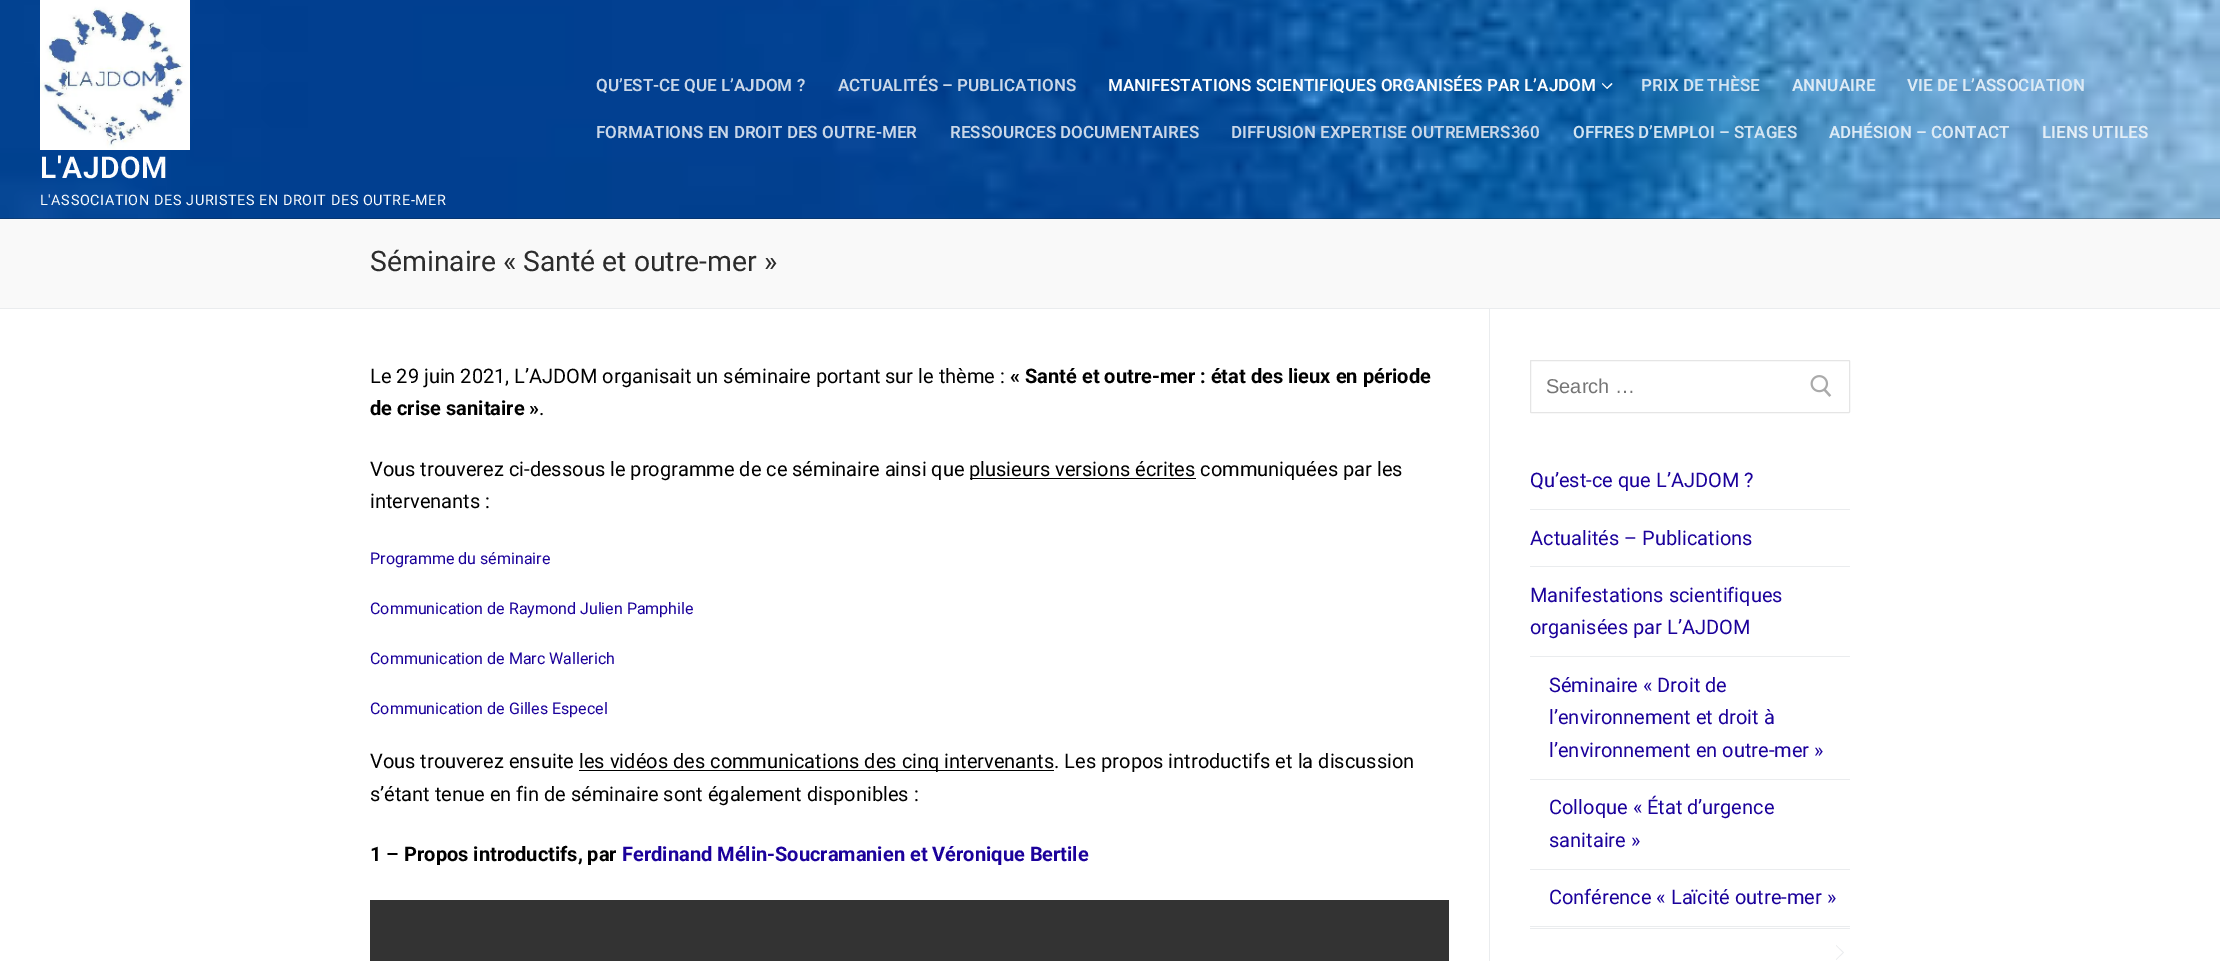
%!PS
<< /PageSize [2220 961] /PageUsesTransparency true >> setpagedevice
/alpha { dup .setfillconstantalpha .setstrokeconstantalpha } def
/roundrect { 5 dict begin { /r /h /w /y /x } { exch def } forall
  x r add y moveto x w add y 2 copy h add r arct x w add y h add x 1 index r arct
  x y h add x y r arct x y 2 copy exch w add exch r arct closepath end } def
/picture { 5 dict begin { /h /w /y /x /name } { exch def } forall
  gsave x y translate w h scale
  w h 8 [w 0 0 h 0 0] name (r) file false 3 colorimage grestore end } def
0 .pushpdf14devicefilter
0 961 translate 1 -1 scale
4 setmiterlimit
1 setgray
0 0 2220 961 rectfill
(img1.rgb) 0 0 2220 219 picture
/Roboto-SemiBold [17 0 0 -17 0 0] selectfont
0.792 0.843 0.91 setrgbcolor
596 91 moveto (QU’EST-CE QUE L’AJDOM ?) show
838 91 moveto (ACTUALITÉS – PUBLICATIONS) show
0.988 0.992 0.996 setrgbcolor
1108 91 moveto (MANIFESTATIONS SCIENTIFIQUES ORGANISÉES PAR L’AJDOM) show
0.99 alpha
1 setgray
newpath 1607 89 moveto 1602 84 lineto 1602.5 83 lineto 1607 87.5 lineto closepath 1612.5 84 moveto 1607 89 lineto 1607 87.5 lineto 1611.5 83 lineto closepath fill
1 alpha
0.827 0.894 0.945 setrgbcolor
1641 91 moveto (PRIX DE THÈSE) show
0.863 0.918 0.961 setrgbcolor
1792 91 moveto (ANNUAIRE) show
1907 91 moveto (VIE DE L’ASSOCIATION) show
0.792 0.843 0.91 setrgbcolor
596 138 moveto (FORMATIONS EN DROIT DES OUTRE-MER) show
950 138 moveto (RESSOURCES DOCUMENTAIRES) show
1231 138 moveto (DIFFUSION EXPERTISE OUTREMERS360) show
0.827 0.894 0.945 setrgbcolor
1573 138 moveto (OFFRES D’EMPLOI – STAGES) show
0.863 0.918 0.961 setrgbcolor
1829 138 moveto (ADHÉSION – CONTACT) show
0.894 0.933 0.965 setrgbcolor
2042 138 moveto (LIENS UTILES) show
(img2.rgb) 40 0 150 150 picture
/Roboto-SemiBold [30 0 0 -30 0 0] selectfont
0.988 0.992 0.996 setrgbcolor
40 178 moveto 0.5 0 (L'AJDOM) ashow
/Roboto-Regular [14.4 0 0 -14.4 0 0] selectfont
40 205 moveto 0.6 0 (L'ASSOCIATION DES JURISTES EN DROIT DES OUTRE-MER) ashow
0.976 setgray
0 219 2220 89 rectfill
0.918 0.925 0.933 setrgbcolor
0 308 2220 1 rectfill
/Roboto-Regular [28.3 0 0 -28.3 0 0] selectfont
0.169 setgray
370 271 moveto (Séminaire « Santé et outre-mer ») show
0.918 0.925 0.933 setrgbcolor
1489 309 1 652 rectfill
/Roboto-Regular [20 0 0 -20 0 0] selectfont
0 setgray
370 383 moveto (Le 29 juin 2021, L’AJDOM organisait un séminaire portant sur le thème :) show
/Roboto-Bold [20 0 0 -20 0 0] selectfont
1010 383 moveto (« Santé et outre-mer : état des lieux en période) show
370 415 moveto (de crise sanitaire ») show
/Roboto-Regular [20 0 0 -20 0 0] selectfont
539 415 moveto (.) show
370 476 moveto (Vous trouverez ci-dessous le programme de ce séminaire ainsi que) show
970 478 226 1 rectfill
969 476 moveto (plusieurs versions écrites communiquées par les) show
370 508 moveto (intervenants :) show
/Roboto-Regular [16 0 0 -16 0 0] selectfont
0.106 0.004 0.608 setrgbcolor
370 564 moveto (Programme du séminaire) show
370 614 moveto (Communication de Raymond Julien Pamphile) show
370 664 moveto (Communication de Marc Wallerich) show
370 714 moveto (Communication de Gilles Especel) show
/Roboto-Regular [20 0 0 -20 0 0] selectfont
0 setgray
370 768 moveto (Vous trouverez ensuite) show
579 770 475 1 rectfill
579 768 moveto (les vidéos des communications des cinq intervenants. Les propos introductifs et la discussion) show
370 801 moveto (s’étant tenue en fin de séminaire sont également disponibles :) show
/Roboto-Bold [20 0 0 -20 0 0] selectfont
370 861 moveto (1 – Propos introductifs, par) show
0.106 0.004 0.608 setrgbcolor
622 861 moveto (Ferdinand Mélin-Soucramanien et Véronique Bertile) show
0.2 setgray
370 900 1079 61 rectfill
0.898 setgray
1530.5 360.5 319 52 0.5 roundrect stroke
/LiberationSans-Regular [20 0 0 -20 0 0] selectfont
0.459 setgray
1546 393 moveto (Search …) show
(img3.rgb) 1810 375 22 22 picture
0.918 0.925 0.933 setrgbcolor
1530 509 320 1 rectfill
/Roboto-Regular [20 0 0 -20 0 0] selectfont
0.106 0.004 0.608 setrgbcolor
1530 487 moveto (Qu’est-ce que L’AJDOM ?) show
0.918 0.925 0.933 setrgbcolor
1530 566 320 1 rectfill
0.106 0.004 0.608 setrgbcolor
1530 545 moveto (Actualités – Publications) show
0.918 0.925 0.933 setrgbcolor
1530 656 320 1 rectfill
0.106 0.004 0.608 setrgbcolor
1530 602 moveto (Manifestations scientifiques) show
1530 634 moveto (organisées par L’AJDOM) show
0.918 0.925 0.933 setrgbcolor
1530 779 320 1 rectfill
0.106 0.004 0.608 setrgbcolor
1549 692 moveto (Séminaire « Droit de) show
1549 724 moveto (l’environnement et droit à) show
1549 757 moveto (l’environnement en outre-mer ») show
0.918 0.925 0.933 setrgbcolor
1530 869 320 1 rectfill
0.106 0.004 0.608 setrgbcolor
1549 814 moveto (Colloque « État d’urgence) show
1549 847 moveto (sanitaire ») show
0.918 0.925 0.933 setrgbcolor
1530 926 320 1 rectfill
0.106 0.004 0.608 setrgbcolor
1549 904 moveto (Conférence « Laïcité outre-mer ») show
0.918 0.925 0.933 setrgbcolor
1530 928 320 1 rectfill
newpath 1836 960 moveto 1836 945 lineto 1844 952.5 lineto closepath fill
1 setgray
newpath 1835 960 moveto 1835 945 lineto 1842.5 952.5 lineto closepath fill
.poppdf14devicefilter showpage
